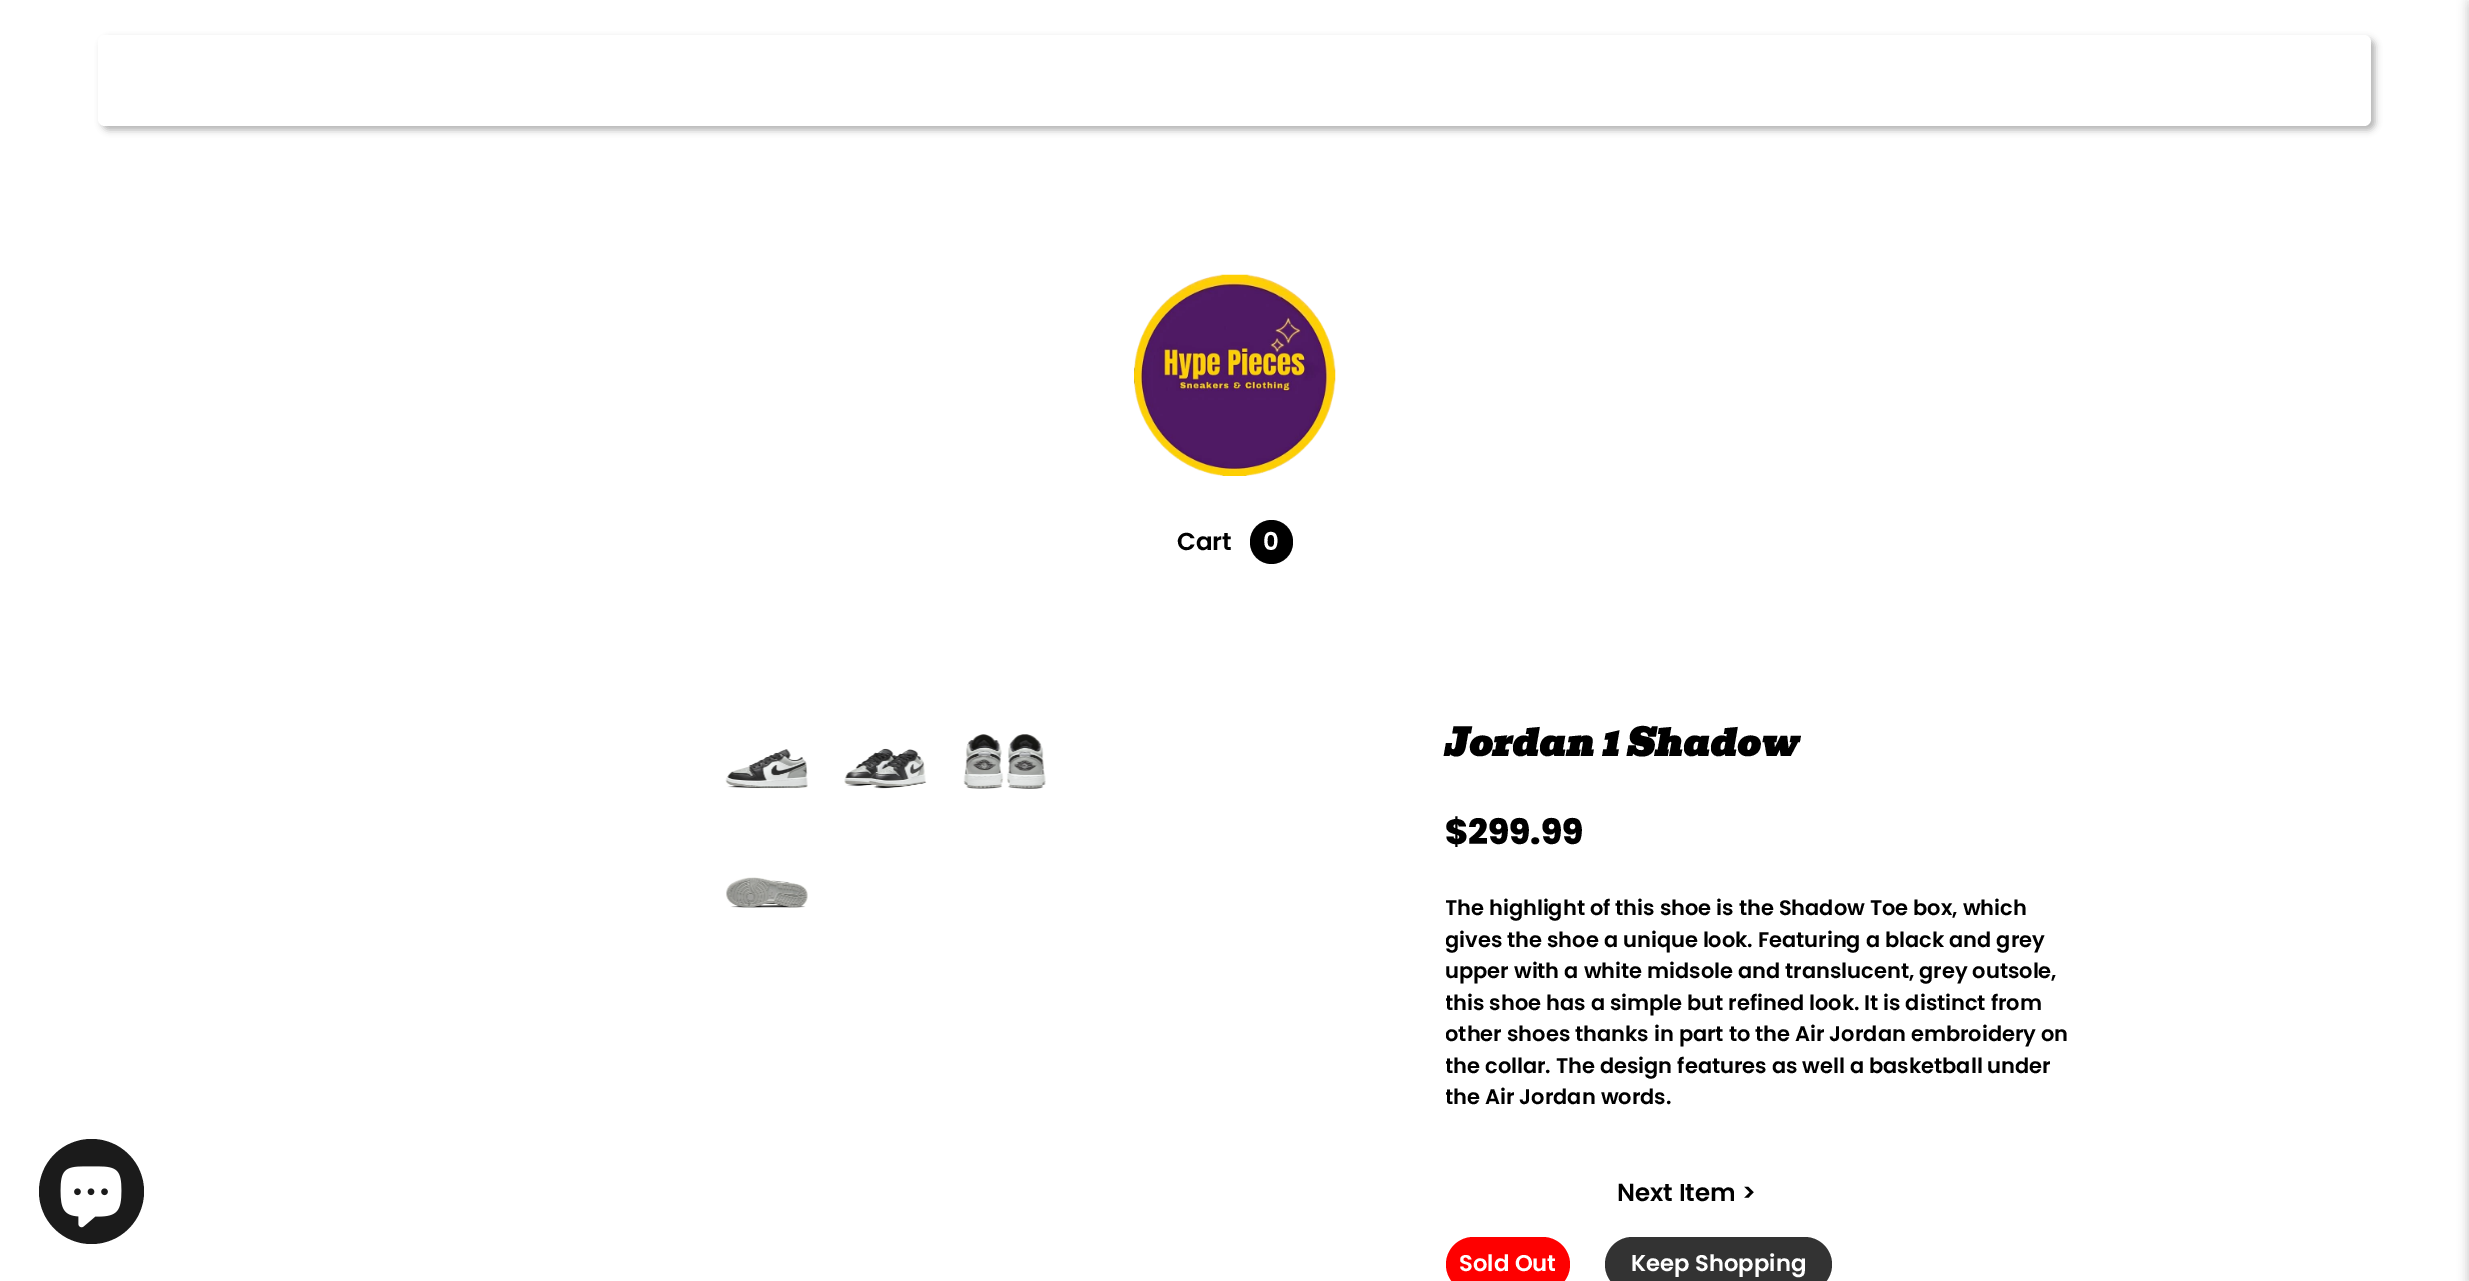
%!PS
<< /PageSize [2469 1281] /PageUsesTransparency true >> setpagedevice
/alpha { dup .setfillconstantalpha .setstrokeconstantalpha } def
/roundrect { 5 dict begin { /r /h /w /y /x } { exch def } forall
  x r add y moveto x w add y 2 copy h add r arct x w add y h add x 1 index r arct
  x y h add x y r arct x y 2 copy exch w add exch r arct closepath end } def
/shadow { 12 dict begin { /a /b /q /h /w /y /x } { exch def } forall gsave /was 0 def
  9 -2 -9 { dup b mul 4 div /e exch def 1 sub .425 mul 2.718 exch exp 1 add a .99 .min exch div /now exch def
    1 1 now sub 1 was sub div sub alpha /was now def
    w h .min e 2 mul add 0 gt { x e sub y e sub w e 2 mul add h e 2 mul add
      q e add b .6 mul add w h .min 2 div e add .min 0 .max roundrect fill } if } for grestore end } def
/picture { 5 dict begin { /h /w /y /x /name } { exch def } forall
  gsave x y translate w h scale
  w h 8 [w 0 0 h 0 0] name (r) file false 3 colorimage grestore end } def
0 .pushpdf14devicefilter
0 1281 translate 1 -1 scale
4 setmiterlimit
1 setgray
0 0 2469 1281 rectfill
0 setgray
2466 0 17 1281 0 4.5 0.1 shadow
0.106 setgray
newpath 91.5 1191.5 52.5 0 360 arc closepath fill
(img1.rgb) 60 1166 62 62 picture
0 setgray
102 39 2273 91 7 3.5 0.3 shadow
1 setgray
98 35 2273 91 7 roundrect fill
(img2.rgb) 1134 274 202 202 picture
/Poppins-SemiBold [24.5 0 0 -24.5 0 0] selectfont
0 setgray
1177 550 moveto (Cart) show
1250 520 43 44 21.5 roundrect fill
1 setgray
1263 550 moveto (0) show
(img3.rgb) 725 749 83 40 picture
(img4.rgb) 844 748 83 41 picture
(img5.rgb) 963 734 83 55 picture
(img6.rgb) 726 877 82 31 picture
/Bevan-BoldItalic [36.75 0 0 -36.75 0 0] selectfont
0 setgray
1445 756 moveto (Jordan 1 Shadow) show
/Poppins-ExtraBold [35 0 0 -35 0 0] selectfont
1445 844 moveto ($299.99) show
gsave
1446 893 630 220 rectclip
/Poppins-SemiBold [21 0 0 -21 0 0] selectfont
1445 915 moveto (The highlight of this shoe is the Shadow Toe box, which) show
1445 947 moveto (gives the shoe a unique look. Featuring a black and grey) show
grestore
/Poppins-SemiBold [21 0 0 -21 0 0] selectfont
1445 978 moveto (upper with a white midsole and translucent, grey outsole,) show
gsave
1446 893 630 220 rectclip
1445 1010 moveto (this shoe has a simple but refined look. It is distinct from) show
1445 1041 moveto (other shoes thanks in part to the Air Jordan embroidery on) show
1445 1073 moveto (the collar. The design features as well a basketball under) show
1445 1104 moveto (the Air Jordan words.) show
grestore
0.996 0 0 setrgbcolor
1446 1237 124 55 27.5 roundrect fill
/Poppins-SemiBold [22.75 0 0 -22.75 0 0] selectfont
1 setgray
1459 1271 moveto (Sold Out) show
/Poppins-SemiBold [24.5 0 0 -24.5 0 0] selectfont
0 setgray
1617 1201 moveto (Next Item >) show
0.2 setgray
1605 1237 227 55 27.5 roundrect fill
/Poppins-SemiBold [22.75 0 0 -22.75 0 0] selectfont
1 setgray
1631 1271 moveto (Keep Shopping) show
0 setgray
2469 7 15 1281 0 5 0.1 shadow
.poppdf14devicefilter showpage
